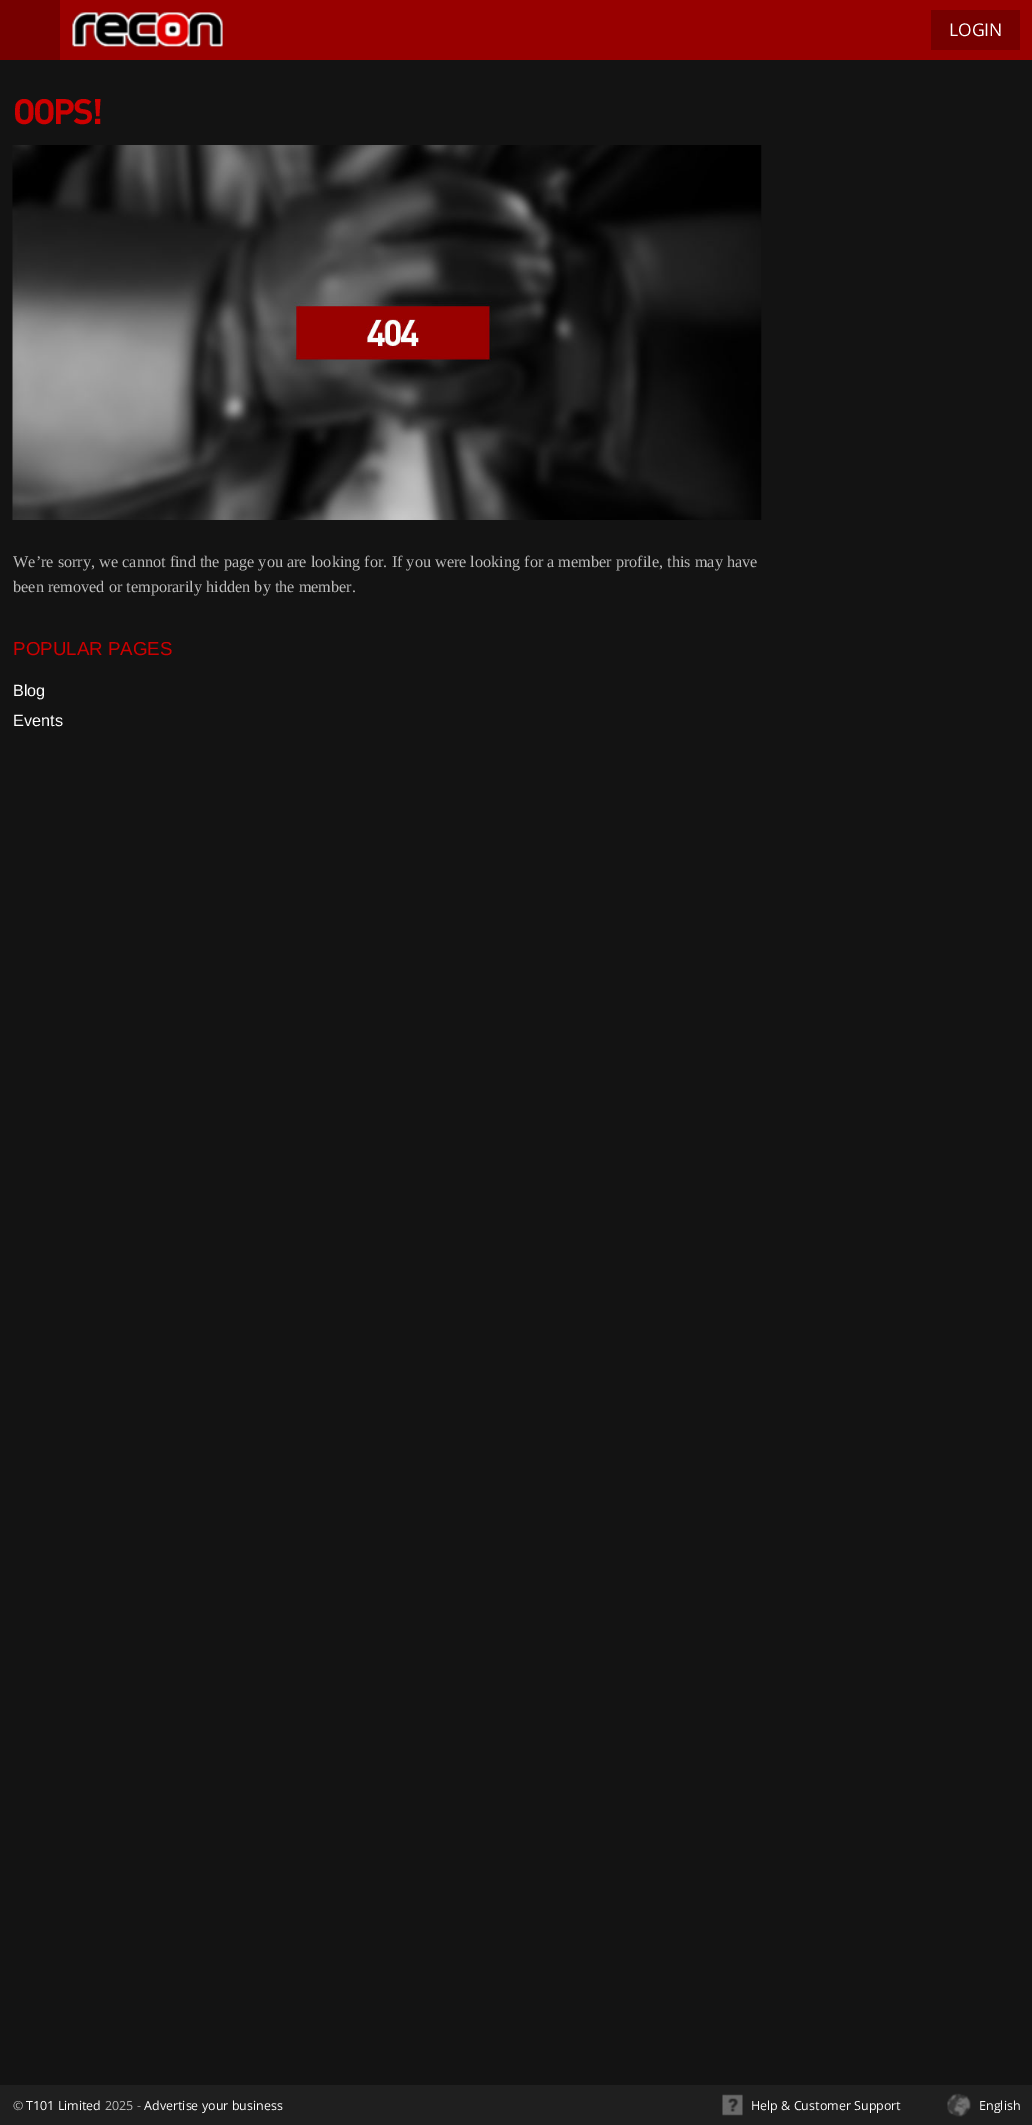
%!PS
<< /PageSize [1032 2125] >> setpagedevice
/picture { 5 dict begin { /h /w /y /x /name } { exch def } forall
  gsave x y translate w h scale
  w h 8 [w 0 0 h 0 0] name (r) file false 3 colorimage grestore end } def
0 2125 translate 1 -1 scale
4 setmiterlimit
0.075 setgray
0 0 1032 2125 rectfill
0.6 0 0 setrgbcolor
60 0 972 60 rectfill
0.467 0 0 setrgbcolor
0 0 60 60 rectfill
(img1.rgb) 72 12 151 35 picture
931 10 89 40 rectfill
/OpenSans-Regular [17.5 0 0 -17.5 0 0] selectfont
1 setgray
949 36 moveto (LOGIN) show
/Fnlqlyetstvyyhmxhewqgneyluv-Bold [35 0 0 -35 0 0] selectfont
0.8 0 0 setrgbcolor
13 124 moveto -2.5 0 (OOPS!) ashow
(img2.rgb) 12 145 750 375 picture
/LiberationSerif-Regular [16.25 0 0 -16.25 0 0] selectfont
0.729 setgray
13 567 moveto (We’re sorry, we cannot find the page you are looking for. If you were looking for a member profile, this may have) show
13 592 moveto (been removed or temporarily hidden by the member.) show
/LiberationSans-Regular [18.75 0 0 -18.75 0 0] selectfont
0.8 0 0 setrgbcolor
13 655 moveto (POPULAR PAGES) show
/LiberationSans-Regular [16.25 0 0 -16.25 0 0] selectfont
1 setgray
13 696 moveto (Blog) show
13 726 moveto (Events) show
0.122 setgray
0 2085 1032 40 rectfill
/OpenSans-Regular [12.5 0 0 -12.5 0 0] selectfont
0.729 setgray
13 2110 moveto (©) show
1 setgray
26 2110 moveto (T101 Limited) show
0.729 setgray
105 2110 moveto (2025 -) show
1 setgray
144 2110 moveto (Advertise your business) show
(img3.rgb) 722 2094 21 22 picture
751 2110 moveto (Help & Customer Support) show
(img4.rgb) 947 2093 24 24 picture
979 2110 moveto (English) show
showpage
